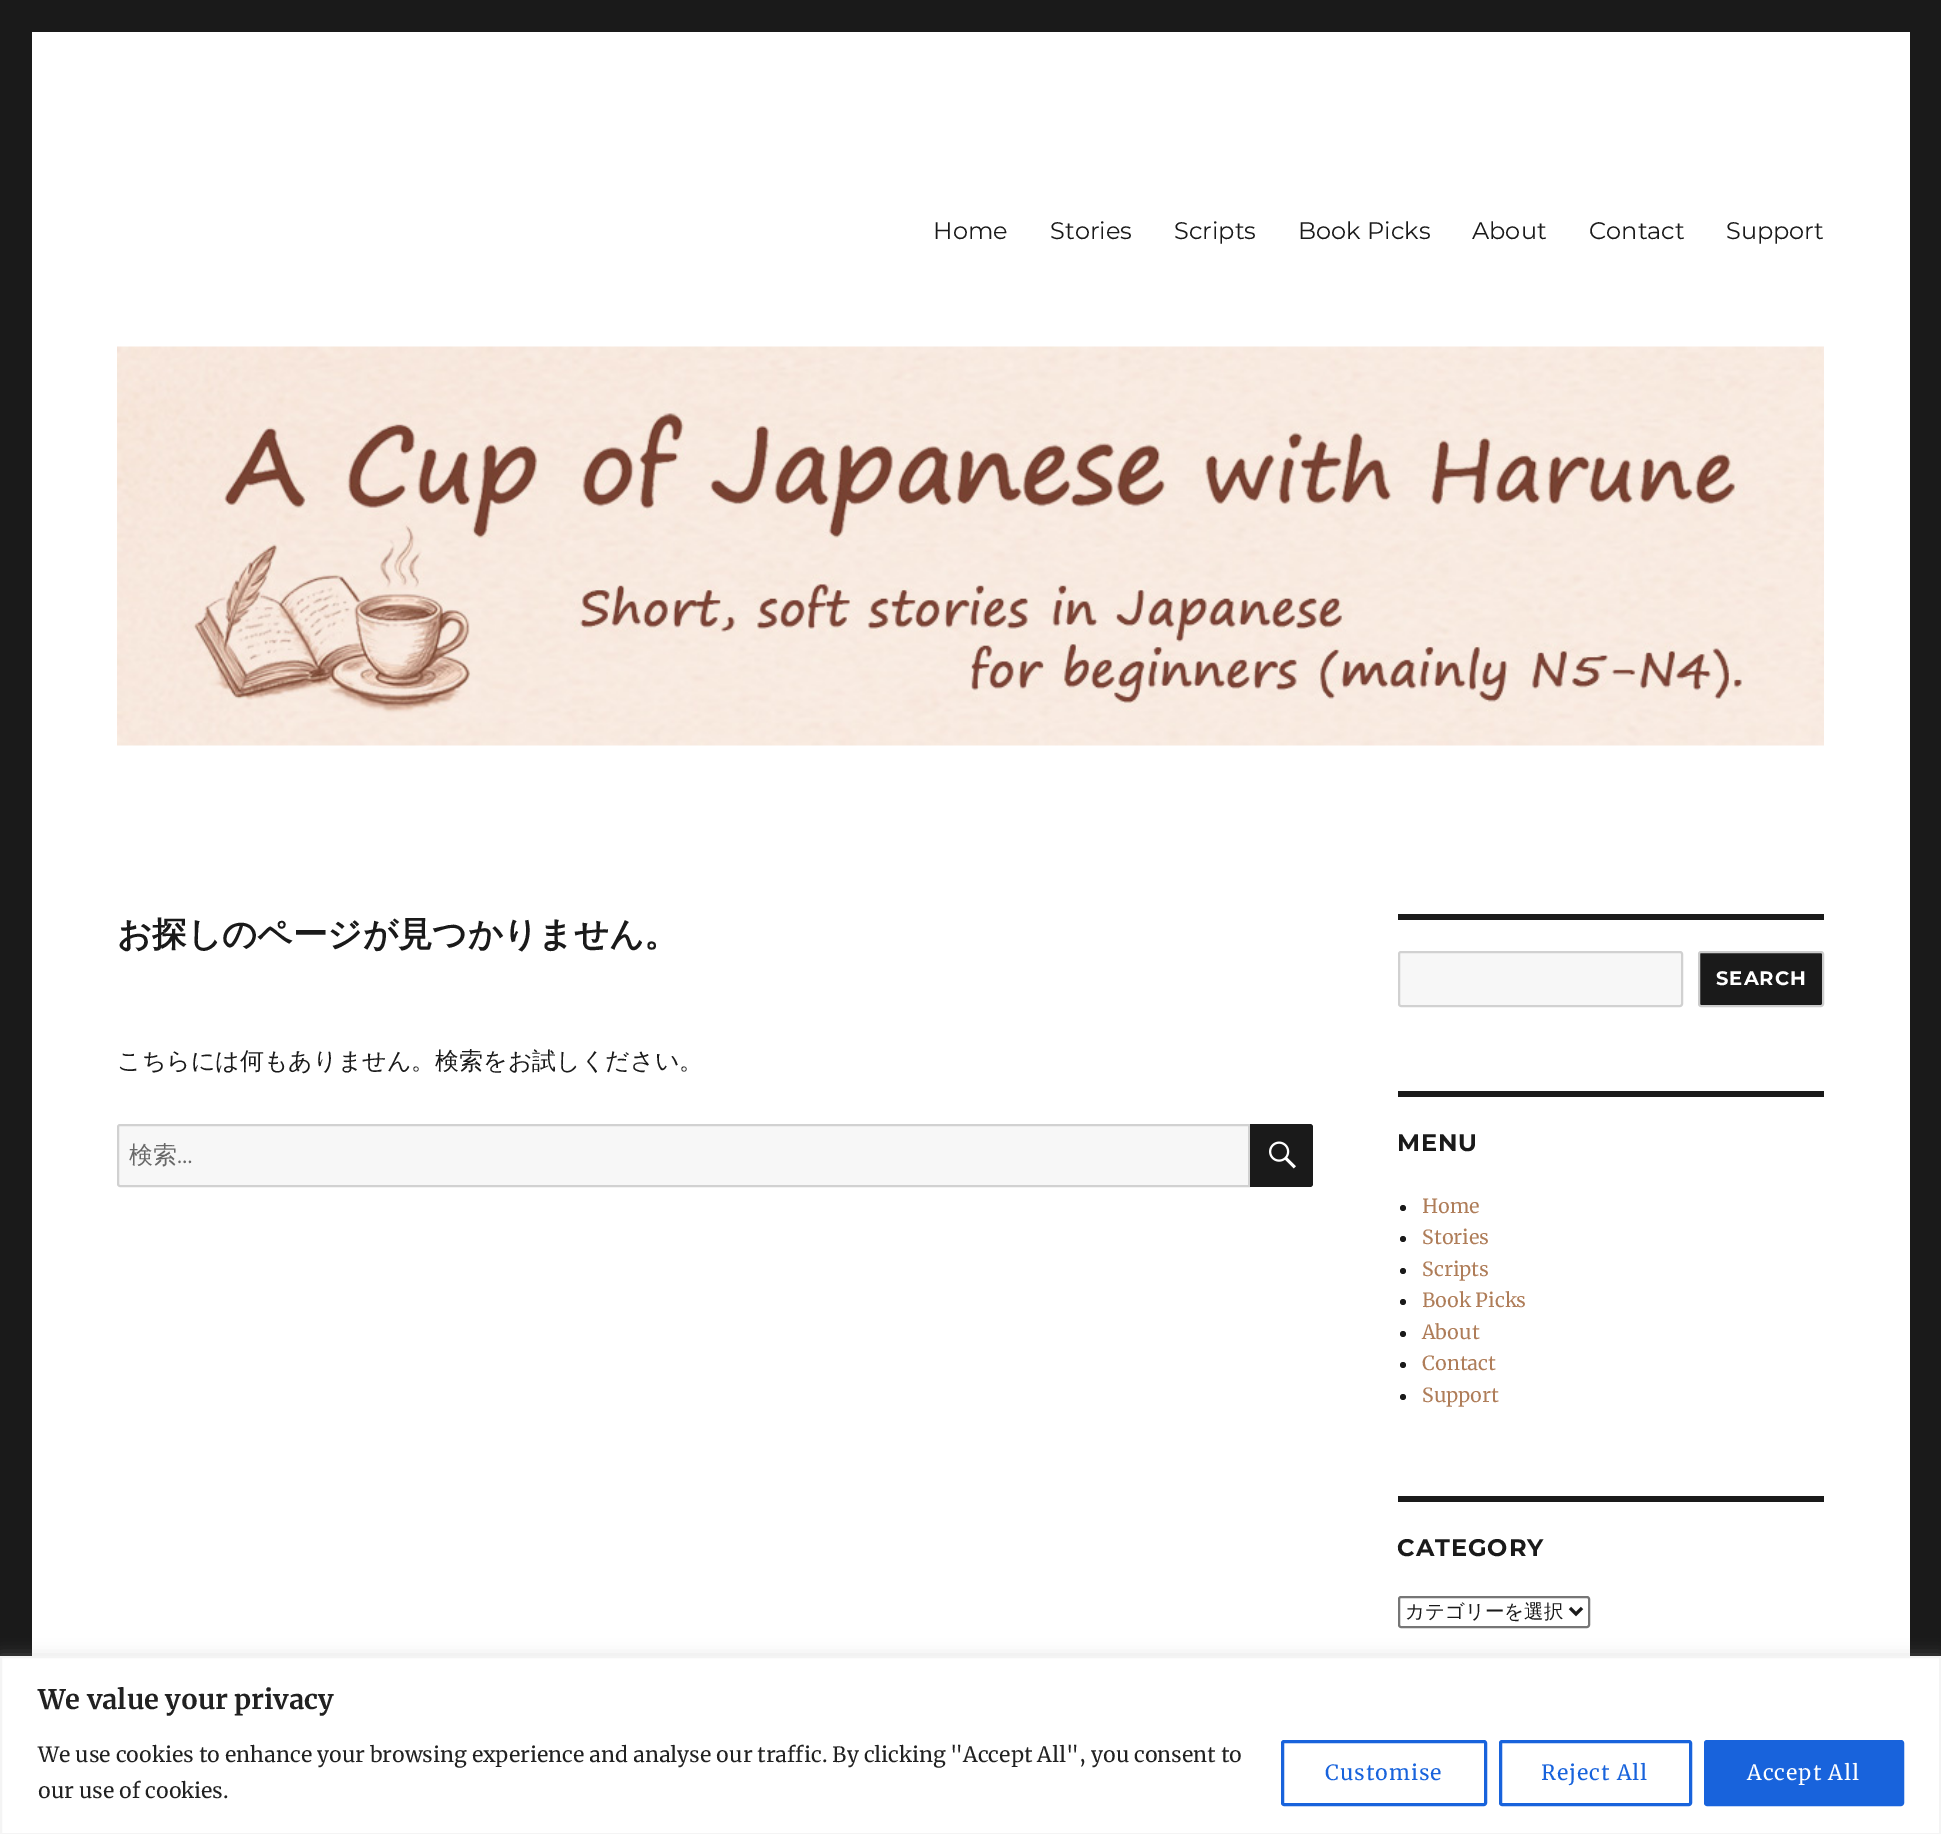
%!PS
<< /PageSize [1941 1834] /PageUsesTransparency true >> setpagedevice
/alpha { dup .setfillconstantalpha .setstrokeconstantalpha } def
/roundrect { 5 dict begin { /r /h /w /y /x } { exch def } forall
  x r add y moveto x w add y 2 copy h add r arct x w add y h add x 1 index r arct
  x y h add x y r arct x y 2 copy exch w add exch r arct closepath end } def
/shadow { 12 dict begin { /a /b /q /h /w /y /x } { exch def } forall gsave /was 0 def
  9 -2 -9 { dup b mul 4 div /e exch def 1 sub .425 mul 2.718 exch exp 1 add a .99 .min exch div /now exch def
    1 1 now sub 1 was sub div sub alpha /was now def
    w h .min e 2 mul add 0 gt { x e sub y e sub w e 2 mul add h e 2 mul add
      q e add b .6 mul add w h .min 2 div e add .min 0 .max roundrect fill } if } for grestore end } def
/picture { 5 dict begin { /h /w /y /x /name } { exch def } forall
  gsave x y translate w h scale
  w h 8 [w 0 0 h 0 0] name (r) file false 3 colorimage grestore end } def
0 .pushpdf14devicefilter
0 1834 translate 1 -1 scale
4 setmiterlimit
0.102 setgray
0 0 1941 1834 rectfill
1 setgray
32 32 1878 1624 rectfill
/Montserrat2-Thin [24 0 0 -24 0 0] selectfont
0.102 setgray
933 239 moveto (Home) show
1050 239 moveto (Stories) show
1174 239 moveto (Scripts) show
1298 239 moveto (Book Picks) show
1472 239 moveto (About) show
1589 239 moveto (Contact) show
1726 239 moveto (Support) show
(img1.rgb) 117 346 1707 400 picture
/WenQuanYiZenHei-Bold [34.5 0 0 -34.5 0 0] selectfont
117 946 moveto (お探しのページが見つかりません。) show
/WenQuanYiZenHei-Medium [24 0 0 -24 0 0] selectfont
117 1069 moveto (こちらには何もありません。検索をお試しください。) show
0.969 setgray
newpath 120 1125 moveto 1249 1125 lineto 1249 1186 lineto 120 1186 lineto 119 1186 118 1185 118 1184 curveto 118 1127 lineto 118 1126 119 1125 120 1125 curveto closepath gsave fill grestore
0.82 setgray
2 setlinewidth
stroke
0.408 setgray
129 1163 moveto (検索) show
/Montserrat2-Thin [24 0 0 -24 0 0] selectfont
177 1163 moveto (…) show
0.102 setgray
newpath 1250 1124 moveto 1310 1124 lineto 1311.5 1124 1313 1125.5 1313 1127 curveto 1313 1184 lineto 1313 1185.5 1311.5 1187 1310 1187 curveto 1250 1187 lineto closepath fill
(img2.rgb) 1269 1141 27 28 picture
1398 914 426 6 rectfill
0.969 setgray
1399 952 283 54 2 roundrect gsave fill grestore
0.82 setgray
stroke
0.102 setgray
1699 952 124 54 2 roundrect gsave fill grestore
0.8 setgray
stroke
/Montserrat-Thin [19.5 0 0 -19.5 0 0] selectfont
1 setgray
1716 985 moveto 1 0 (SEARCH) ashow
0.102 setgray
1398 1091 426 6 rectfill
/Montserrat-Thin [24 0 0 -24 0 0] selectfont
1397 1151 moveto 1 0 (MENU) ashow
newpath 1403 1208 3 0 360 arc closepath fill
/Merriweather-Regular [19.5 0 0 -19.5 0 0] selectfont
0.686 0.49 0.349 setrgbcolor
1422 1213 moveto (Home) show
0.102 setgray
newpath 1403 1239 3 0 360 arc closepath fill
0.686 0.49 0.349 setrgbcolor
1422 1244 moveto (Stories) show
0.102 setgray
newpath 1403 1271 3 0 360 arc closepath fill
0.686 0.49 0.349 setrgbcolor
1422 1276 moveto (Scripts) show
0.102 setgray
newpath 1403 1302 3 0 360 arc closepath fill
0.686 0.49 0.349 setrgbcolor
1422 1307 moveto (Book Picks) show
0.102 setgray
newpath 1403 1334 3 0 360 arc closepath fill
0.686 0.49 0.349 setrgbcolor
1422 1339 moveto (About) show
0.102 setgray
newpath 1403 1365 3 0 360 arc closepath fill
0.686 0.49 0.349 setrgbcolor
1422 1370 moveto (Contact) show
0.102 setgray
newpath 1403 1397 3 0 360 arc closepath fill
0.686 0.49 0.349 setrgbcolor
1422 1402 moveto (Support) show
0.102 setgray
1398 1496 426 6 rectfill
/Montserrat-Thin [24 0 0 -24 0 0] selectfont
1397 1556 moveto 1 0 (CATEGORY) ashow
0.463 setgray
1399 1597 190 30 2 roundrect stroke
0.102 setgray
3 setlinewidth
newpath 1570 1608 moveto 1576 1614 lineto 1582 1608 lineto stroke
/WenQuanYiZenHei-Medium [19.5 0 0 -19.5 0 0] selectfont
1405 1618 moveto (カテゴリーを選択) show
0.675 0.671 0.671 setrgbcolor
0 1655 1941 178 0 7.5 0.3 shadow
1 setgray
newpath 1 1657 moveto 1940 1657 lineto 1940 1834 lineto 1 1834 lineto closepath gsave fill grestore
0.957 setgray
2 setlinewidth
stroke
/Merriweather-Bold [27 0 0 -27 0 0] selectfont
0.129 setgray
38 1709 moveto (We value your privacy) show
/Merriweather-Regular [21 0 0 -21 0 0] selectfont
38 1762 moveto (We use cookies to enhance your browsing experience and analyse our traffic. By clicking "Accept All", you consent to) show
38 1798 moveto (our use of cookies.) show
0.094 0.388 0.863 setrgbcolor
3 setlinewidth
1282.5 1741.5 203 63 1.5 roundrect stroke
1325 1780 moveto 1 0 (Customise) ashow
1500.5 1741.5 190 63 1.5 roundrect stroke
1541 1780 moveto 1 0 (Reject All) ashow
1705.5 1741.5 197 63 1.5 roundrect gsave fill grestore
stroke
1 setgray
1747 1780 moveto 1 0 (Accept All) ashow
.poppdf14devicefilter showpage
